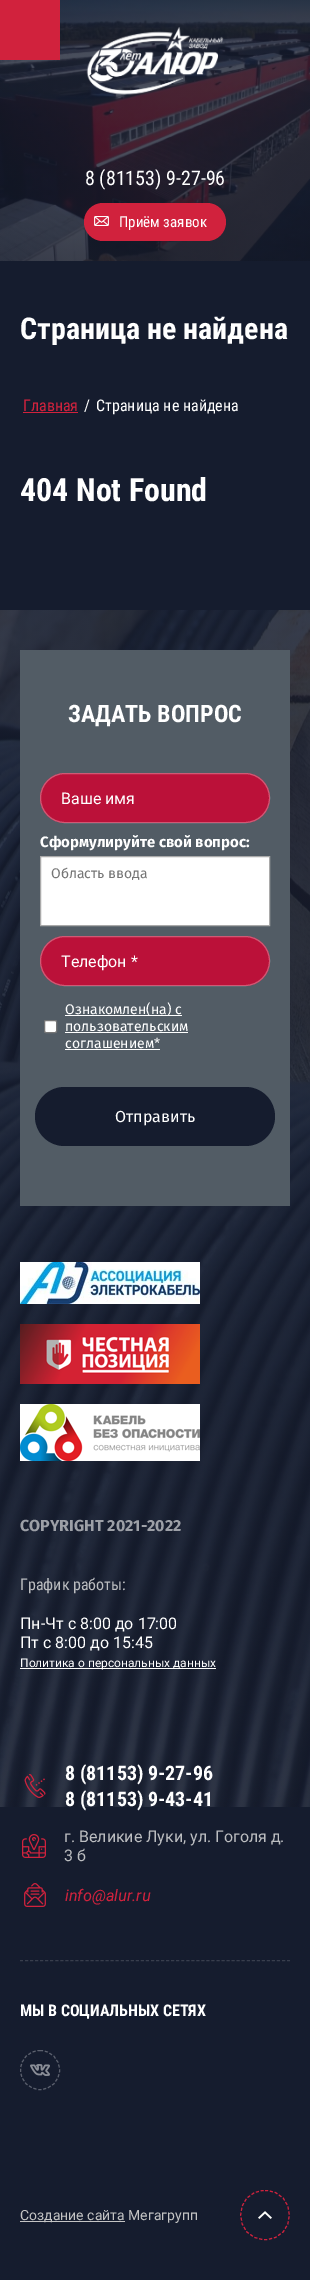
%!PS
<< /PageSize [310 2280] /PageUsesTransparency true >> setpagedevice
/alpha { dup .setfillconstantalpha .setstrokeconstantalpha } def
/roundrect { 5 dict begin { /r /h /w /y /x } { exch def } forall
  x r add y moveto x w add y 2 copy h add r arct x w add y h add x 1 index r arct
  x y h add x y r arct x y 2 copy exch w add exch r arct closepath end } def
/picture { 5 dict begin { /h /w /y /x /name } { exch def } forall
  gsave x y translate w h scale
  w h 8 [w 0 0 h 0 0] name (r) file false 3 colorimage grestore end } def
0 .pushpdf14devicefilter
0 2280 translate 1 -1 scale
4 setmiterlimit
0.082 0.11 0.18 setrgbcolor
0 0 310 2280 rectfill
(img1.rgb) 0 0 310 261 picture
0.82 0.133 0.239 setrgbcolor
0 0 60 60 rectfill
(img2.rgb) 86 27 138 68 picture
/RobotoCondensed-Regular [20 0 0 -20 0 0] selectfont
1 setgray
85 185 moveto (8 \(81153\) 9-27-96) show
0.82 0.133 0.239 setrgbcolor
84 203 142 38 19 roundrect fill
(img3.rgb) 94 216 15 10 picture
/RobotoCondensed-Regular [15 0 0 -15 0 0] selectfont
1 setgray
119 227 moveto (Приём заявок) show
/RobotoCondensed-Bold [30 0 0 -30 0 0] selectfont
20 339 moveto (Страница не найдена) show
/RobotoCondensed-Regular [16 0 0 -16 0 0] selectfont
0.82 0.133 0.239 setrgbcolor
23 411 moveto (Главная) show
23 412 55 1 rectfill
1 setgray
84 411 moveto (/) show
96 411 moveto (Страница не найдена) show
/RobotoCondensed-Bold [32 0 0 -32 0 0] selectfont
20 501 moveto (404 Not Found) show
(img4.rgb) 0 610 310 1197 picture
0.322 0.361 0.396 setrgbcolor
20 650 270 556 rectfill
/RobotoCondensed-Bold [24 0 0 -24 0 0] selectfont
1 setgray
68 722 moveto (ЗАДАТЬ ВОПРОС) show
0.733 0.067 0.224 setrgbcolor
40 773 230 50 25 roundrect fill
0.3 alpha
1 setgray
40.5 773.5 229 49 24.5 roundrect stroke
/Roboto-Regular [16 0 0 -16 0 0] selectfont
1 alpha
61 804 moveto (Ваше имя) show
/FiraSans-Bold [15 0 0 -15 0 0] selectfont
40 847 moveto (Сформулируйте свой вопрос:) show
newpath 40.5 856.5 moveto 269.5 856.5 lineto 269.5 925.5 lineto 40.5 925.5 lineto closepath gsave fill grestore
0.663 setgray
stroke
/FiraSans-Regular [14 0 0 -14 0 0] selectfont
0.459 setgray
51 878 moveto (Область ввода) show
0.733 0.067 0.224 setrgbcolor
40 936 230 50 25 roundrect fill
0.3 alpha
1 setgray
40.5 936.5 229 49 24.5 roundrect stroke
/Roboto-Regular [16 0 0 -16 0 0] selectfont
1 alpha
61 967 moveto (Телефон *) show
44.5 1020.5 12 12 1.5 roundrect gsave fill grestore
0.463 setgray
stroke
1 setgray
65 1015 117 1 rectfill
/FiraSans-Regular [14 0 0 -14 0 0] selectfont
65 1014 moveto (Ознакомлен\(на\) с) show
65 1031 moveto (пользовательским) show
65 1032 123 1 rectfill
65 1048 moveto (соглашением*) show
65 1049 95 1 rectfill
0.082 0.11 0.18 setrgbcolor
35 1087 240 59 29.5 roundrect fill
/FiraSans-Regular [16 0 0 -16 0 0] selectfont
1 setgray
115 1122 moveto (Отправить) show
(img5.rgb) 20 1262 180 42 picture
(img6.rgb) 20 1324 180 60 picture
(img7.rgb) 20 1404 180 57 picture
/FiraSans-Bold [16 0 0 -16 0 0] selectfont
0.616 0.627 0.655 setrgbcolor
20 1531 moveto (COPYRIGHT 2021-2022) show
/RobotoCondensed-Regular [16 0 0 -16 0 0] selectfont
0.733 0.741 0.753 setrgbcolor
20 1590 moveto (График работы:) show
/Roboto-Regular [16 0 0 -16 0 0] selectfont
1 setgray
20 1629 moveto (Пн-Чт с 8:00 до 17:00) show
20 1648 moveto (Пт с 8:00 до 15:45) show
1 1 0.988 setrgbcolor
20 1668 196 1 rectfill
/Roboto-Regular [12 0 0 -12 0 0] selectfont
1 setgray
20 1667 moveto (Политика о персональных данных) show
(img8.rgb) 24 1774 22 24 picture
/RobotoCondensed-Bold [20 0 0 -20 0 0] selectfont
65 1780 moveto (8 \(81153\) 9-27-96) show
65 1806 moveto (8 \(81153\) 9-43-41) show
(img9.rgb) 22 1834 24 24 picture
/Roboto-Regular [16 0 0 -16 0 0] selectfont
0.733 0.741 0.753 setrgbcolor
64 1842 moveto (г. Великие Луки, ул. Гоголя д.) show
64 1861 moveto (3 б) show
(img10.rgb) 24 1883 22 24 picture
/Roboto-Italic [16 0 0 -16 0 0] selectfont
0.82 0.133 0.239 setrgbcolor
65 1901 moveto (info@alur.ru) show
0.22 0.243 0.302 setrgbcolor
[3 2.04] 0 setdash
newpath 20 1960.5 moveto 290 1960.5 lineto stroke
/RobotoCondensed-Bold [16 0 0 -16 0 0] selectfont
1 setgray
20 2016 moveto (МЫ В СОЦИАЛЬНЫХ СЕТЯХ) show
0.357 0.376 0.427 setrgbcolor
[3 2] 0 setdash
newpath 40 2050.5 moveto 51 2050.5 59.5 2059 59.5 2070 curveto 59.5 2081 51 2089.5 40 2089.5 curveto 29 2089.5 20.5 2081 20.5 2070 curveto 20.5 2059 29 2050.5 40 2050.5 curveto closepath stroke
(img11.rgb) 30 2064 20 12 picture
0.769 setgray
20 2221 105 1 rectfill
/Roboto-Regular [14 0 0 -14 0 0] selectfont
20 2220 moveto (Создание сайта Мегагрупп) show
0.82 0.133 0.239 setrgbcolor
newpath 265 2190.5 moveto 297.5 2190.5 297.5 2239.5 265 2239.5 curveto 232.5 2239.5 232.5 2190.5 265 2190.5 curveto closepath stroke
(img12.rgb) 258 2211 14 8 picture
.poppdf14devicefilter showpage
